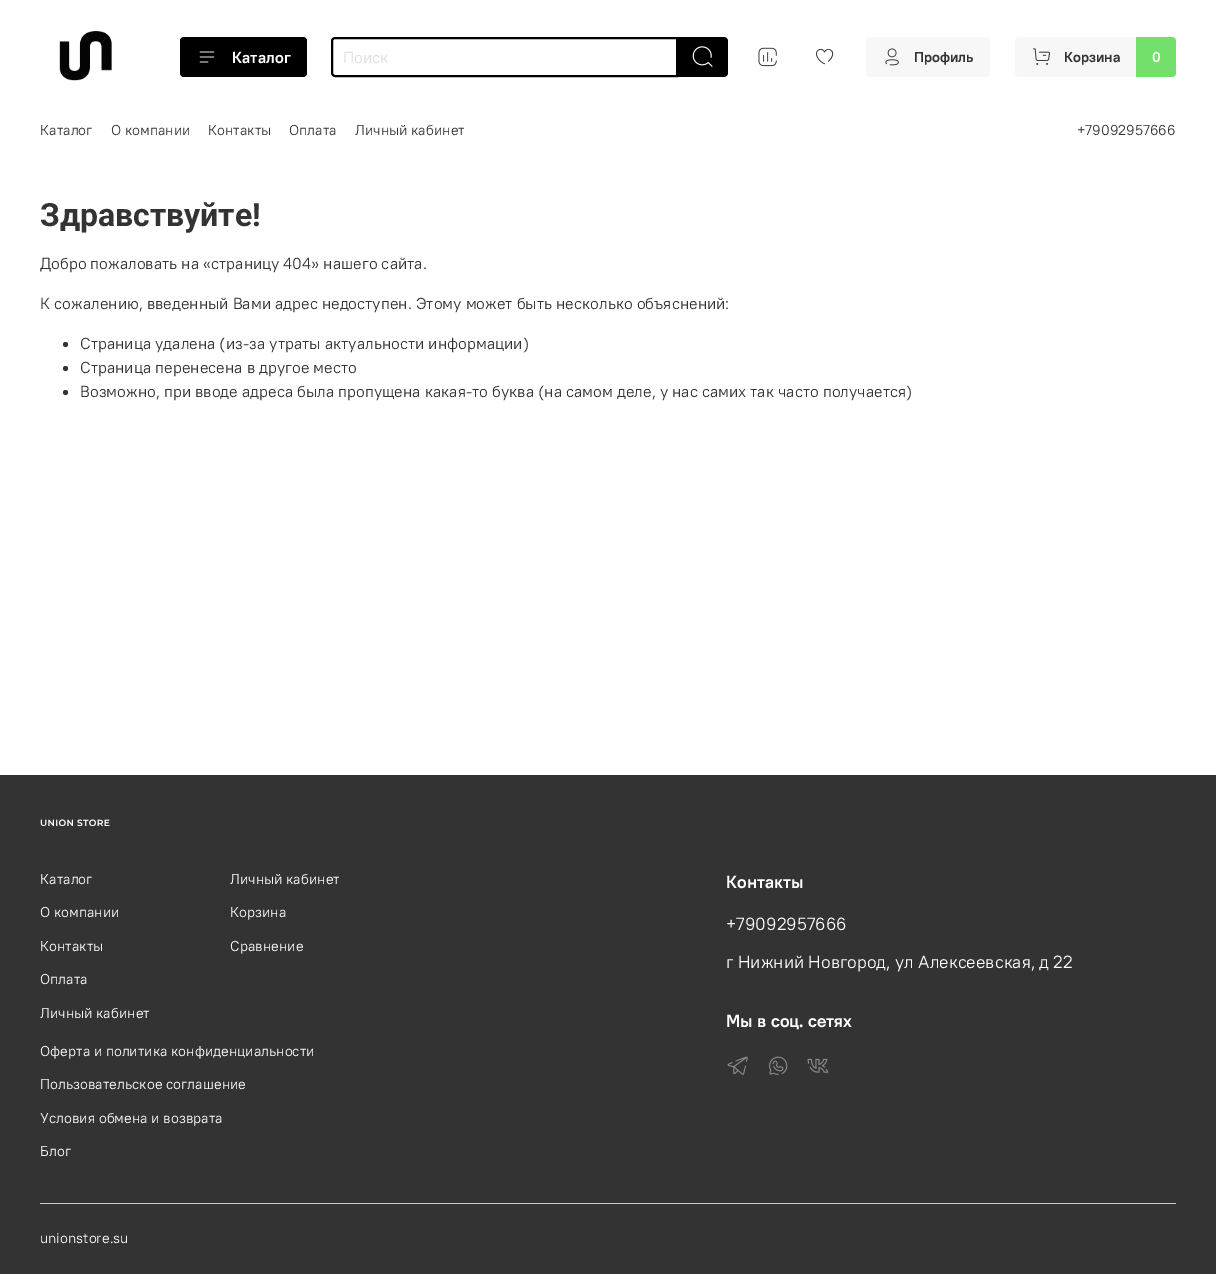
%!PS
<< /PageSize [1216 1274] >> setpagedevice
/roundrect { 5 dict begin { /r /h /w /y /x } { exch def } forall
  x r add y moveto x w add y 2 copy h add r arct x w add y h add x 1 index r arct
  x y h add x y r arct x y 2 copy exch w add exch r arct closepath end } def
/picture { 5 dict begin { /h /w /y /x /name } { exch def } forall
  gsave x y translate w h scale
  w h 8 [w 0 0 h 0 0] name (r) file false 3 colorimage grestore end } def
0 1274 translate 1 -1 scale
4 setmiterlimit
1 setgray
0 0 1216 1274 rectfill
(img1.rgb) 59 31 53 50 picture
0 setgray
180 37 127 40 4 roundrect fill
(img2.rgb) 199 51 16 12 picture
/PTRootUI-Bold [16 0 0 -16 0 0] selectfont
1 setgray
232 63 moveto (Каталог) show
0 setgray
2 setlinewidth
newpath 335 38 moveto 677 38 lineto 677 76 lineto 335 76 lineto 333.5 76 332 74.5 332 73 curveto 332 41 lineto 332 39.5 333.5 38 335 38 curveto closepath stroke
/PTRootUI-Regular [16 0 0 -16 0 0] selectfont
0.867 setgray
343 63 moveto (Поиск) show
0 setgray
newpath 678 37 moveto 724 37 lineto 726 37 728 39 728 41 curveto 728 73 lineto 728 75 726 77 724 77 curveto 678 77 lineto closepath fill
(img3.rgb) 692 46 21 21 picture
(img4.rgb) 758 47 19 20 picture
(img5.rgb) 816 49 18 16 picture
0.969 setgray
866 37 124 40 4 roundrect fill
(img6.rgb) 885 48 14 18 picture
/PTRootUI-Bold [14.4 0 0 -14.4 0 0] selectfont
0.2 setgray
914 62 moveto (Профиль) show
0.969 setgray
1015 37 161 40 4 roundrect fill
(img7.rgb) 1033 48 17 17 picture
0.2 setgray
1064 62 moveto (Корзина) show
0.455 0.878 0.424 setrgbcolor
newpath 1136 37 moveto 1172 37 lineto 1174 37 1176 39 1176 41 curveto 1176 73 lineto 1176 75 1174 77 1172 77 curveto 1136 77 lineto closepath fill
1 setgray
1152 62 moveto (0) show
/PTRootUI-Regular [14.4 0 0 -14.4 0 0] selectfont
0.2 setgray
40 135 moveto (Каталог) show
111 135 moveto (О компании) show
208 135 moveto (Контакты) show
289 135 moveto (Оплата) show
355 135 moveto (Личный кабинет) show
1077 135 moveto (+79092957666) show
/Roboto-Bold [32 0 0 -32 0 0] selectfont
40 226 moveto (Здравствуйте!) show
/PTRootUI-Regular [16 0 0 -16 0 0] selectfont
40 269 moveto (Добро пожаловать на «страницу 404» нашего сайта.) show
40 309 moveto (К сожалению, введенный Вами адрес недоступен. Этому может быть несколько объяснений:) show
newpath 65.5 344.5 2.5 0 360 arc closepath fill
80 349 moveto (Страница удалена \(из-за утраты актуальности информации\)) show
newpath 65.5 368.5 2.5 0 360 arc closepath fill
80 373 moveto (Страница перенесена в другое место) show
newpath 65.5 392.5 2.5 0 360 arc closepath fill
80 397 moveto (Возможно, при вводе адреса была пропущена какая-то буква \(на самом деле, у нас самих так часто получается\)) show
0 775 1216 499 rectfill
(img8.rgb) 40 819 70 7 picture
/PTRootUI-Regular [14.4 0 0 -14.4 0 0] selectfont
1 setgray
40 884 moveto (Каталог) show
40 917 moveto (О компании) show
40 951 moveto (Контакты) show
40 984 moveto (Оплата) show
40 1018 moveto (Личный кабинет) show
230 884 moveto (Личный кабинет) show
230 917 moveto (Корзина) show
230 951 moveto (Сравнение) show
40 1056 moveto (Оферта и политика конфиденциальности) show
40 1089 moveto (Пользовательское соглашение) show
40 1123 moveto (Условия обмена и возврата) show
40 1156 moveto (Блог) show
/PTRootUI-Bold [17.6 0 0 -17.6 0 0] selectfont
726 888 moveto (Контакты) show
/PTRootUI-Regular [17.6 0 0 -17.6 0 0] selectfont
726 930 moveto (+79092957666) show
726 968 moveto (г Нижний Новгород, ул Алексеевская, д 22) show
/PTRootUI-Bold [17.6 0 0 -17.6 0 0] selectfont
726 1027 moveto (Мы в соц. сетях) show
(img9.rgb) 727 1056 21 19 picture
(img10.rgb) 769 1056 19 19 picture
(img11.rgb) 807 1058 22 15 picture
0.8 setgray
40 1203 1136 1 rectfill
/PTRootUI-Regular [14.4 0 0 -14.4 0 0] selectfont
1 setgray
40 1243 moveto (unionstore.su) show
showpage
